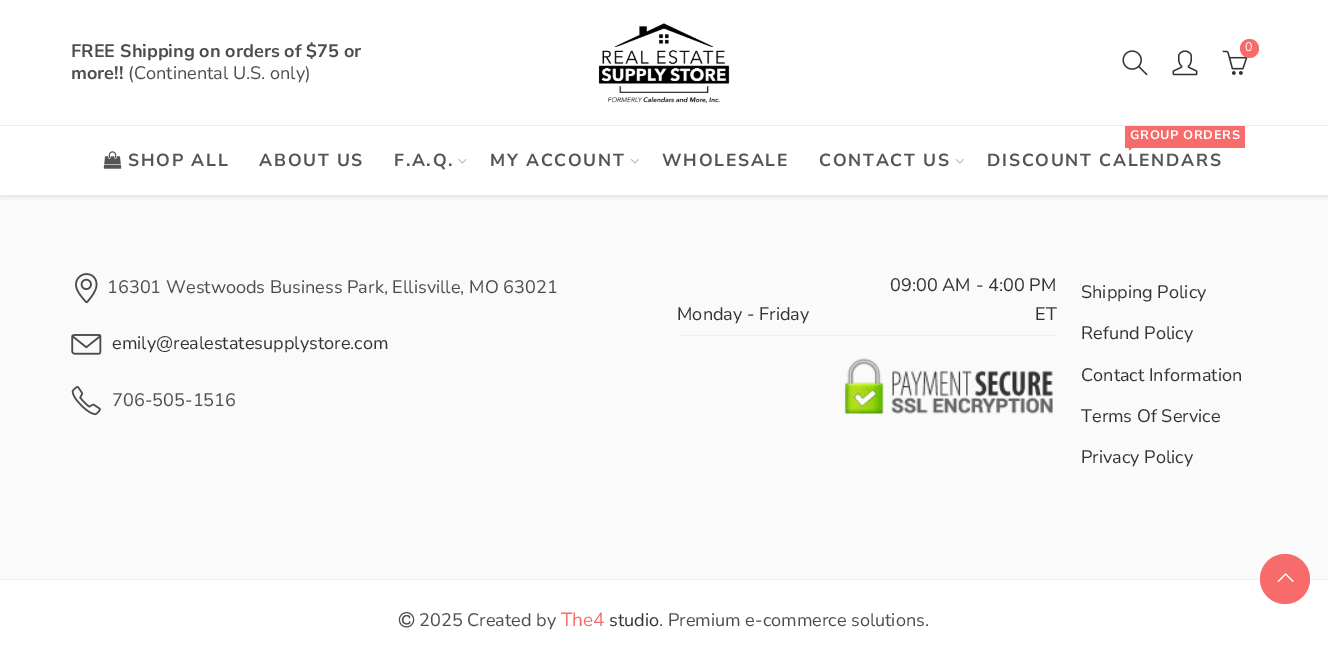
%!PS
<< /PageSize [1328 660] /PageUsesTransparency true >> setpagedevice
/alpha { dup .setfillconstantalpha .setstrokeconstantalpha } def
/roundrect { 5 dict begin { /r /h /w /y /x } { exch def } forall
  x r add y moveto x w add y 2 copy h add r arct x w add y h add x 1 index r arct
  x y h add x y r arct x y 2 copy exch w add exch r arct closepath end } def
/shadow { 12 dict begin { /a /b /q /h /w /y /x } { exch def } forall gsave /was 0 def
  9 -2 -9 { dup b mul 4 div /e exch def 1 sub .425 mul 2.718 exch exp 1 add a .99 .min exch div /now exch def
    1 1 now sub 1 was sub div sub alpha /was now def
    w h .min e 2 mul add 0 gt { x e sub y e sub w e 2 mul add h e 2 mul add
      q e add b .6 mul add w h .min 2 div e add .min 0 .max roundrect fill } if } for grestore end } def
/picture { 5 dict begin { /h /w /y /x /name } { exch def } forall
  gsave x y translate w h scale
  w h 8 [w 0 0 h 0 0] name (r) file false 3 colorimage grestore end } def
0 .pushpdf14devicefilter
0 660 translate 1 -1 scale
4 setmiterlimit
0.98 setgray
0 0 1328 660 rectfill
0.745 setgray
0 1 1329 195 0 3 0.5 shadow
1 setgray
0 0 1328 195 rectfill
/NunitoSans-Bold [18.1 0 0 -18.1 0 0] selectfont
0.302 setgray
71 57 moveto (FREE Shipping on orders of $75 or) show
71 79 moveto (more!!) show
/NunitoSans-Regular [18.1 0 0 -18.1 0 0] selectfont
128 79 moveto (\(Continental U.S. only\)) show
(img1.rgb) 598 23 132 80 picture
(img2.rgb) 1222 50 26 25 picture
0.969 0.42 0.416 setrgbcolor
newpath 1249.5 48.5 9.5 0 360 arc closepath fill
/NunitoSans-Regular [12.5 0 0 -12.5 0 0] selectfont
1 setgray
1245 51 moveto (0) show
(img3.rgb) 1122 50 26 26 picture
(img4.rgb) 1172 50 26 26 picture
0.925 setgray
0 125 1328 1 rectfill
(img5.rgb) 103 151 19 18 picture
/NunitoSans-Bold [17.5 0 0 -17.5 0 0] selectfont
0.333 setgray
128 166 moveto 1.75 0 (SHOP ALL) ashow
259 166 moveto 1.75 0 (ABOUT US) ashow
394 166 moveto 1.75 0 (F.A.Q.) ashow
(img6.rgb) 458 159 9 5 picture
490 166 moveto 1.75 0 (MY ACCOUNT) ashow
(img7.rgb) 630 159 9 5 picture
662 166 moveto 1.75 0 (WHOLESALE) ashow
819 166 moveto 1.75 0 (CONTACT US) ashow
(img7.rgb) 955 159 9 5 picture
0.969 0.42 0.416 setrgbcolor
1125 126 120 22 rectfill
/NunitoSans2-Bold [12.5 0 0 -12.5 0 0] selectfont
1 setgray
1130 139 moveto 0.6 0 (GROUP ORDERS) ashow
(img8.rgb) 1128 148 4 3 picture
/NunitoSans-Bold [17.5 0 0 -17.5 0 0] selectfont
0.333 setgray
987 166 moveto 1.75 0 (DISCOUNT CALENDARS) ashow
(img9.rgb) 75 273 23 31 picture
/NunitoSans-Regular [18.1 0 0 -18.1 0 0] selectfont
0.302 setgray
107 293 moveto (16301 Westwoods Business Park, Ellisville, MO 63021) show
(img10.rgb) 71 334 31 21 picture
0.2 setgray
112 349 moveto (emily@realestatesupplystore.com) show
(img11.rgb) 71 386 30 30 picture
0.302 setgray
112 406 moveto (706-505-1516) show
0.937 setgray
678 335 378 1 rectfill
0.2 setgray
677 320 moveto (Monday - Friday) show
890 291 moveto (09:00 AM - 4:00 PM) show
1035 320 moveto (ET) show
(img12.rgb) 844 358 209 56 picture
1081 298 moveto (Shipping Policy) show
1081 339 moveto (Refund Policy) show
1081 381 moveto (Contact Information) show
1081 422 moveto (Terms Of Service) show
1081 463 moveto (Privacy Policy) show
1 setgray
0 580 1328 80 rectfill
0.933 setgray
0 579 1328 1 rectfill
(img13.rgb) 398 612 17 16 picture
0.302 setgray
419 626 moveto (2025 Created by) show
/NunitoSans-Regular [19 0 0 -19 0 0] selectfont
0.969 0.42 0.416 setrgbcolor
561 626 moveto (The4) show
/NunitoSans-Regular [18.1 0 0 -18.1 0 0] selectfont
0.2 setgray
609 626 moveto (studio) show
0.302 setgray
659 626 moveto (. Premium e-commerce solutions.) show
0.969 0.42 0.416 setrgbcolor
newpath 1285 579 25 0 360 arc closepath fill
(img14.rgb) 1277 573 17 10 picture
.poppdf14devicefilter showpage
